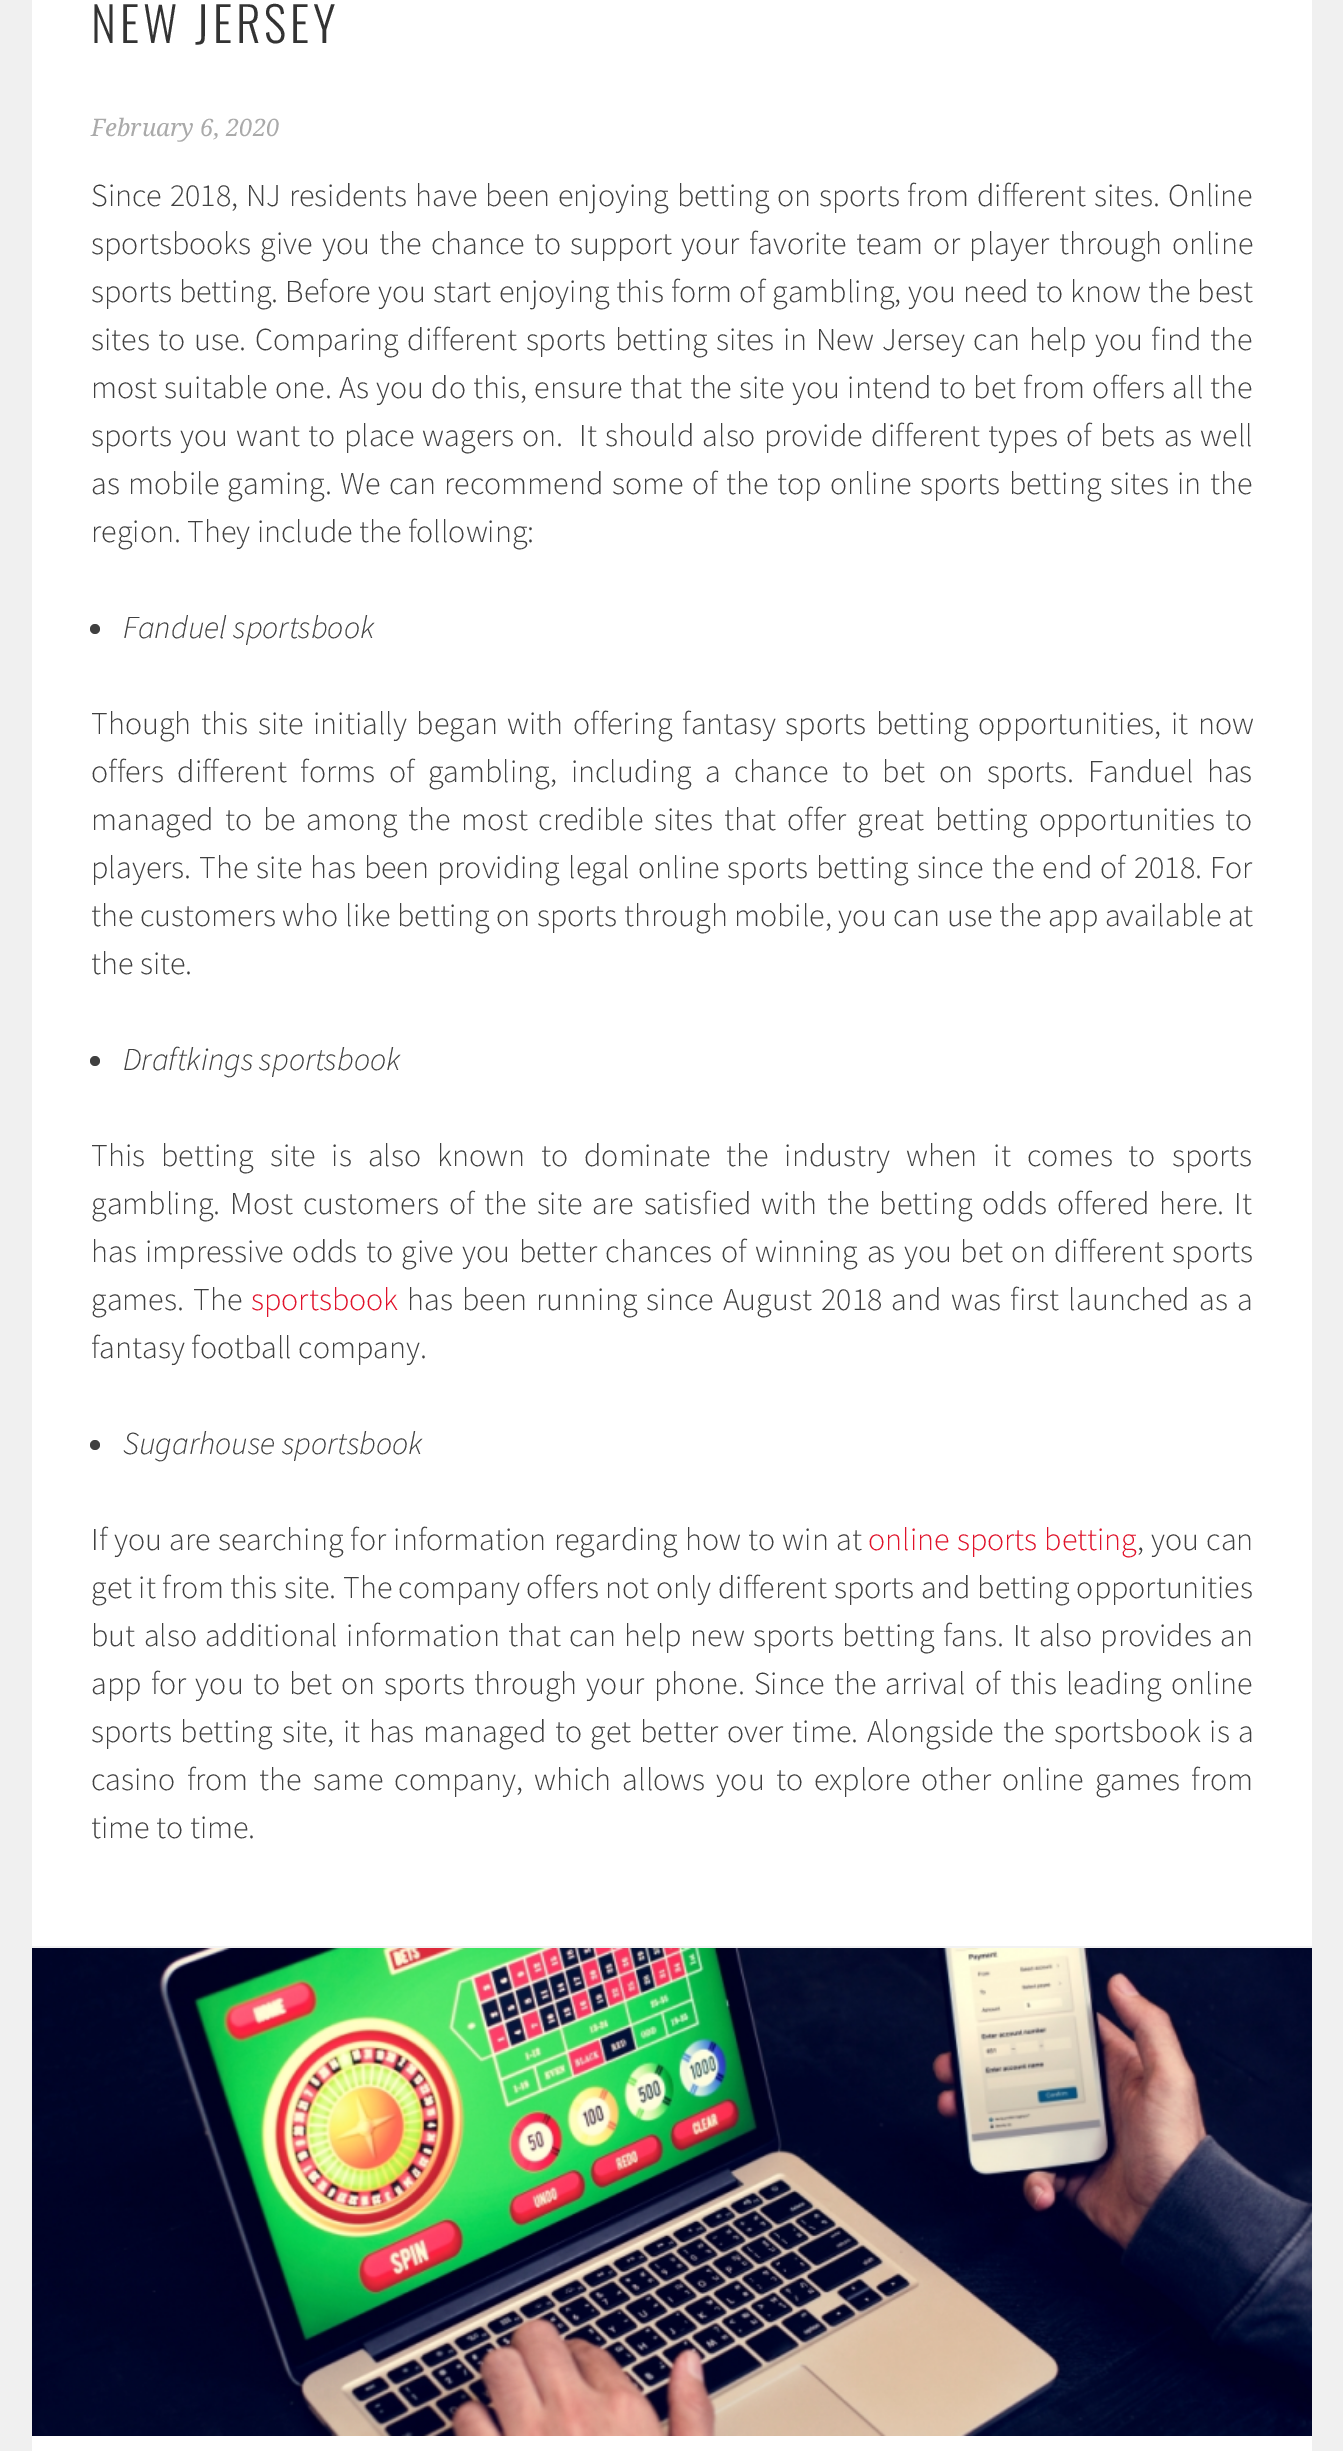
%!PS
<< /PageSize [1343 2451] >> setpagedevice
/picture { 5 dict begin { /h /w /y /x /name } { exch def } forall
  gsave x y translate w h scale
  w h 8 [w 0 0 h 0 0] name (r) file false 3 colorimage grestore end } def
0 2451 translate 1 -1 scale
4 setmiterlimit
0.941 setgray
0 0 1343 2451 rectfill
1 setgray
32 0 1280 2451 rectfill
/Oswald-Light [48 0 0 -48 0 0] selectfont
0.2 setgray
91 43 moveto 4 0 (NEW JERSEY) ashow
/DroidSerif-Italic [24 0 0 -24 0 0] selectfont
0.667 setgray
91 136 moveto (February 6, 2020) show
/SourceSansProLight-Light [32 0 0 -32 0 0] selectfont
0.251 setgray
91 206 moveto 1.4 0 32 (Since 2018, NJ residents have been enjoying betting on sports from different sites. Online) widthshow
91 254 moveto 2.9 0 32 (sportsbooks give you the chance to support your favorite team or player through online) widthshow
91 302 moveto 0.7 0 32 (sports betting. Before you start enjoying this form of gambling, you need to know the best) widthshow
91 350 moveto 2.1 0 32 (sites to use. Comparing different sports betting sites in New Jersey can help you find the) widthshow
91 398 moveto 0.9 0 32 (most suitable one. As you do this, ensure that the site you intend to bet from offers all the) widthshow
91 446 moveto 1.7 0 32 (sports you want to place wagers on.  It should also provide different types of bets as well) widthshow
91 494 moveto 2.1 0 32 (as mobile gaming. We can recommend some of the top online sports betting sites in the) widthshow
91 542 moveto (region. They include the following:) show
newpath 95 629 5 0 360 arc closepath fill
/SourceSansProLight-LightItalic [32 0 0 -32 0 0] selectfont
123 638 moveto (Fanduel sportsbook) show
/SourceSansProLight-Light [32 0 0 -32 0 0] selectfont
91 734 moveto 3.25 0 32 (Though this site initially began with offering fantasy sports betting opportunities, it now) widthshow
91 782 moveto 7.25 0 32 (offers different forms of gambling, including a chance to bet on sports. Fanduel has) widthshow
91 830 moveto 4.4 0 32 (managed to be among the most credible sites that offer great betting opportunities to) widthshow
91 878 moveto 1.6 0 32 (players. The site has been providing legal online sports betting since the end of 2018. For) widthshow
91 926 moveto 0.2 0 32 (the customers who like betting on sports through mobile, you can use the app available at) widthshow
91 974 moveto (the site.) show
newpath 95 1061 5 0 360 arc closepath fill
/SourceSansProLight-LightItalic [32 0 0 -32 0 0] selectfont
123 1070 moveto (Draftkings sportsbook) show
/SourceSansProLight-Light [32 0 0 -32 0 0] selectfont
91 1166 moveto 9.6 0 32 (This betting site is also known to dominate the industry when it comes to sports) widthshow
91 1214 moveto 3.6 0 32 (gambling. Most customers of the site are satisfied with the betting odds offered here. It) widthshow
91 1262 moveto 2.1 0 32 (has impressive odds to give you better chances of winning as you bet on different sports) widthshow
91 1310 moveto 2.75 0 32 (games. The) widthshow
0.882 0.071 0.165 setrgbcolor
251 1310 moveto (sportsbook) show
0.251 setgray
407 1310 moveto 2.75 0 32 (has been running since August 2018 and was first launched as a) widthshow
91 1358 moveto (fantasy football company.) show
newpath 95 1445 5 0 360 arc closepath fill
/SourceSansProLight-LightItalic [32 0 0 -32 0 0] selectfont
123 1454 moveto (Sugarhouse sportsbook) show
/SourceSansProLight-Light [32 0 0 -32 0 0] selectfont
91 1550 moveto 0.75 0 32 (If you are searching for information regarding how to win at) widthshow
0.882 0.071 0.165 setrgbcolor
868 1550 moveto 0.75 0 32 (online sports betting) widthshow
0.251 setgray
1137 1550 moveto 0.7 0 32 (, you can) widthshow
91 1598 moveto (get it from this site. The company offers not only different sports and betting opportunities) show
91 1646 moveto 2 0 32 (but also additional information that can help new sports betting fans. It also provides an) widthshow
91 1694 moveto 2.75 0 32 (app for you to bet on sports through your phone. Since the arrival of this leading online) widthshow
91 1742 moveto 2.25 0 32 (sports betting site, it has managed to get better over time. Alongside the sportsbook is a) widthshow
91 1790 moveto 4.75 0 32 (casino from the same company, which allows you to explore other online games from) widthshow
91 1838 moveto (time to time.) show
0.949 setgray
32 1946 1280 2 rectfill
(img1.rgb) 32 1948 1280 488 picture
showpage
